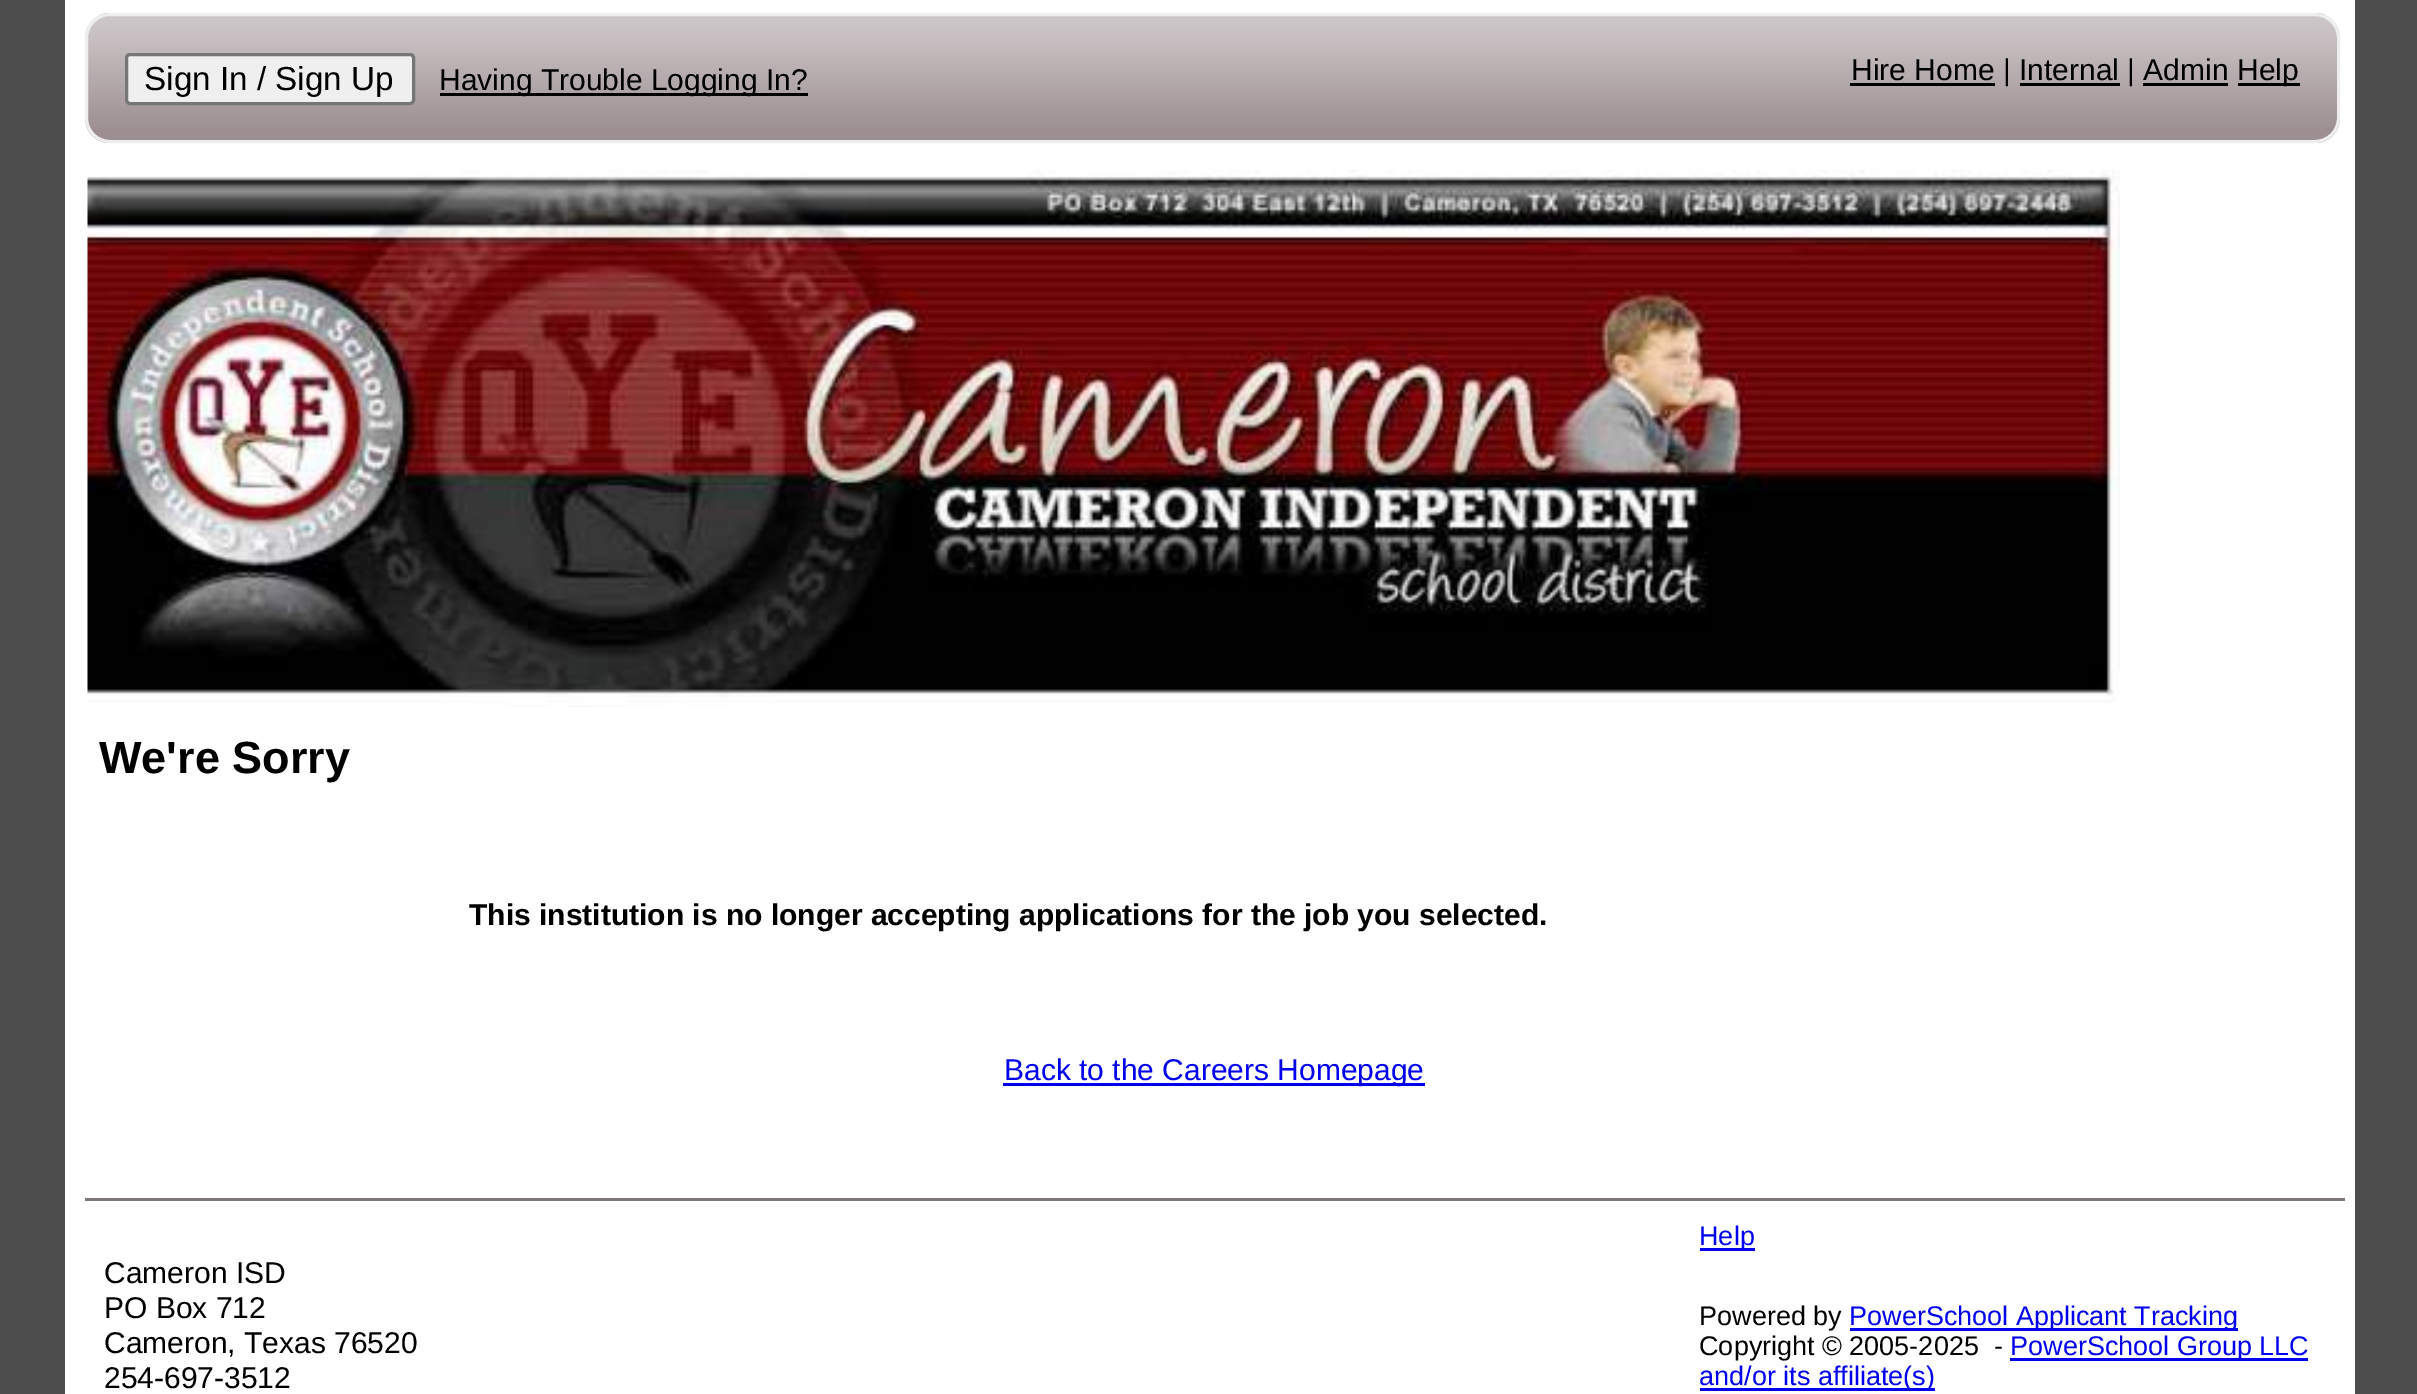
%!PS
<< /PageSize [2417 1394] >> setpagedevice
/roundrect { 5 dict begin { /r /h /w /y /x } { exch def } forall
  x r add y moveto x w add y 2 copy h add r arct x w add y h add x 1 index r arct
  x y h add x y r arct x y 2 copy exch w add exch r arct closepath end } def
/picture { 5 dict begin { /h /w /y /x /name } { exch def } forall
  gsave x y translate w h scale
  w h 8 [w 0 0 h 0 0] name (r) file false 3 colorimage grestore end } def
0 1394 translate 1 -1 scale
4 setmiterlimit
0.302 setgray
0 0 2417 1394 rectfill
1 setgray
65 0 2290 1394 rectfill
0.612 0.557 0.569 setrgbcolor
85 13 2255 130 25 roundrect fill
(img1.rgb) 85 15 2255 112 picture
0.933 setgray
3 setlinewidth
86.5 14.5 2252 127 23.5 roundrect stroke
0.937 setgray
126.5 54.5 287 49 3.5 roundrect gsave fill grestore
0.463 setgray
stroke
/LiberationSans-Regular [33.25 0 0 -33.25 0 0] selectfont
0 setgray
144 90 moveto (Sign In / Sign Up) show
440 93 368 3 rectfill
/LiberationSans-Regular [30 0 0 -30 0 0] selectfont
439 90 moveto (Having Trouble Logging In?) show
1850 83 145 3 rectfill
1851 80 moveto (Hire Home | Internal | Admin) show
2020 83 100 3 rectfill
2143 83 85 3 rectfill
2238 83 62 3 rectfill
2237 80 moveto (Help) show
(img2.rgb) 87 170 2033 537 picture
/LiberationSans-Bold [45 0 0 -45 0 0] selectfont
99 773 moveto (We're Sorry) show
/LiberationSans-Bold [30 0 0 -30 0 0] selectfont
469 925 moveto (This institution is no longer accepting applications for the job you selected.) show
0 0 0.933 setrgbcolor
1003 1083 422 3 rectfill
/LiberationSans-Regular [30 0 0 -30 0 0] selectfont
1004 1080 moveto (Back to the Careers Homepage) show
0.502 0.467 0.475 setrgbcolor
85 1198 2260 3 rectfill
0 setgray
104 1283 moveto (Cameron ISD) show
104 1318 moveto (PO Box 712) show
104 1353 moveto (Cameron, Texas 76520) show
104 1388 moveto (254-697-3512) show
0 0 0.933 setrgbcolor
1700 1248 55 3 rectfill
/LiberationSans-Regular [27 0 0 -27 0 0] selectfont
1699 1245 moveto (Help) show
0 setgray
1699 1325 moveto (Powered by) show
0 0 0.933 setrgbcolor
1850 1328 388 3 rectfill
1849 1325 moveto (PowerSchool Applicant Tracking) show
0 setgray
1699 1355 moveto (Copyright © 2005-2025  -) show
0 0 0.933 setrgbcolor
2010 1358 298 3 rectfill
2010 1355 moveto (PowerSchool Group LLC) show
1700 1388 235 3 rectfill
1699 1385 moveto (and/or its affiliate\(s\)) show
showpage
